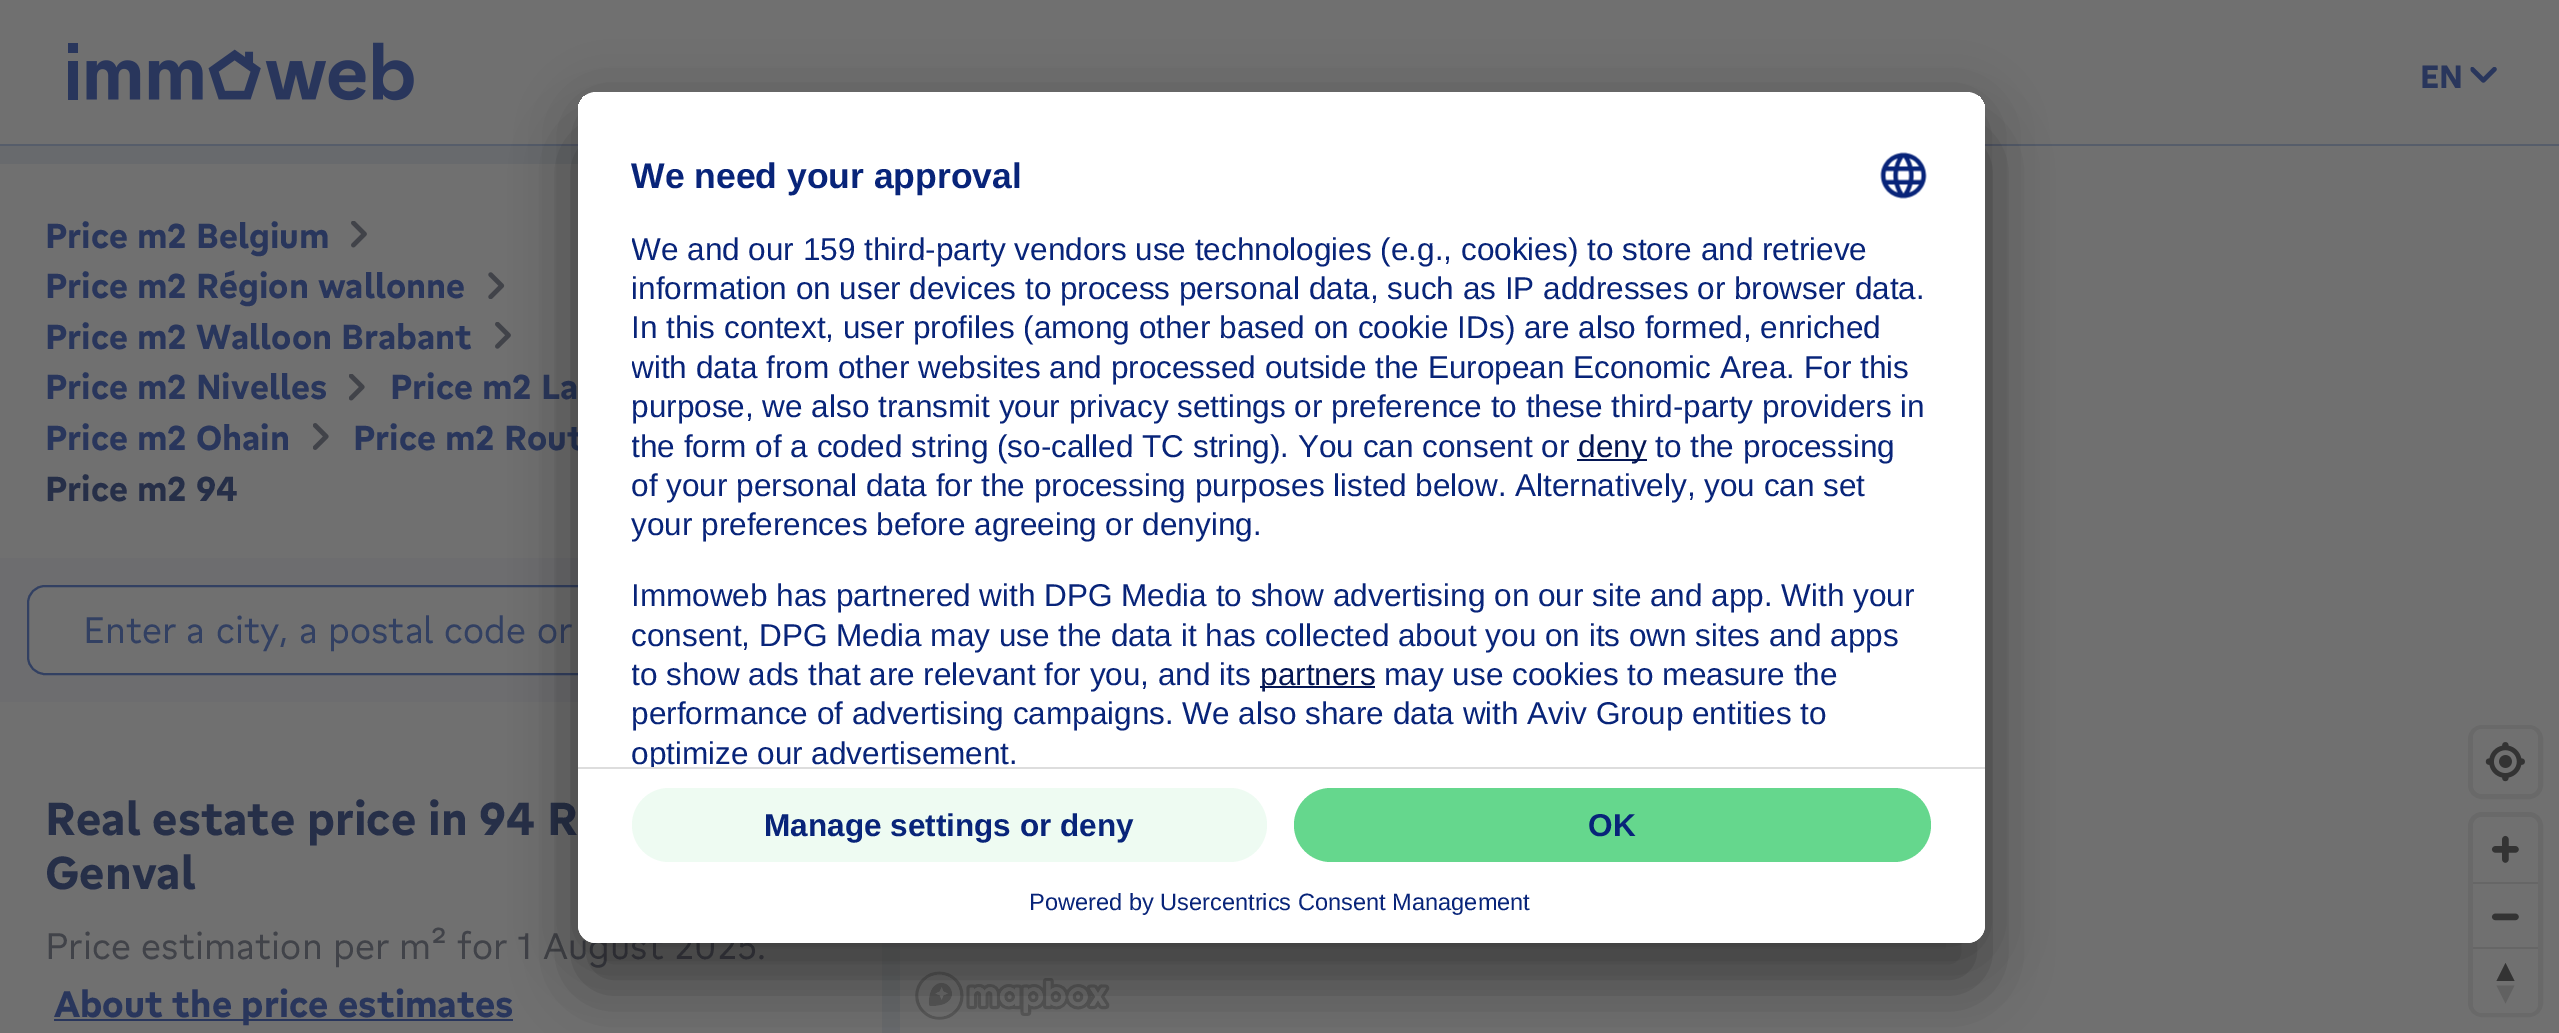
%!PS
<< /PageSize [2559 1033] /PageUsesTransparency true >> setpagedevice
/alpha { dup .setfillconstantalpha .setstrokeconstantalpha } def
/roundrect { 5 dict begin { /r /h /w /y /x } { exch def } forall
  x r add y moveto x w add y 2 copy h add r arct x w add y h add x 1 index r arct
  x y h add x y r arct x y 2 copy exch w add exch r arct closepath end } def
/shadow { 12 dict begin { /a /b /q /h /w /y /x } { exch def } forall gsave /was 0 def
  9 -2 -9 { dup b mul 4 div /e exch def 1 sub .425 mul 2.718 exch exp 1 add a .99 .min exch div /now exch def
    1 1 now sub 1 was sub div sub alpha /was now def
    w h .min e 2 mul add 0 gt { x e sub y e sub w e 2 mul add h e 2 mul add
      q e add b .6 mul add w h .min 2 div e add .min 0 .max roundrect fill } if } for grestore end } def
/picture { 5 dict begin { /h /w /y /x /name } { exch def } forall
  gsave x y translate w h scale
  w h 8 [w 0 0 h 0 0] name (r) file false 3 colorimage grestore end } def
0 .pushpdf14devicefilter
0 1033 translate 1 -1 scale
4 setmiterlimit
0.439 setgray
0 0 2559 1033 rectfill
0.337 0.365 0.416 setrgbcolor
0 144 2559 2 rectfill
(img1.rgb) 68 42 346 59 picture
/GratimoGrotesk-Bold [31.5 0 0 -31.5 0 0] selectfont
0.161 0.212 0.361 setrgbcolor
2420 88 moveto (EN) show
(img2.rgb) 2470 67 27 16 picture
0.408 0.416 0.427 setrgbcolor
0 146 900 887 rectfill
0.439 setgray
0 164 578 394 rectfill
/GratimoGrotesk-Bold [33.75 0 0 -33.75 0 0] selectfont
0.161 0.212 0.361 setrgbcolor
45 248 moveto (Price m2 Belgium) show
(img3.rgb) 351 221 16 27 picture
45 298 moveto (Price m2 Région wallonne) show
(img4.rgb) 488 272 17 27 picture
45 349 moveto (Price m2 Walloon Brabant) show
(img5.rgb) 495 322 16 27 picture
45 399 moveto (Price m2 Nivelles) show
(img6.rgb) 349 374 16 27 picture
390 399 moveto (Price m2 La) show
45 450 moveto (Price m2 Ohain) show
(img7.rgb) 313 423 16 27 picture
353 450 moveto (Price m2 Rout) show
0.149 0.184 0.282 setrgbcolor
45 501 moveto (Price m2 94) show
0.427 0.427 0.435 setrgbcolor
0 558 578 144 rectfill
0.439 setgray
28 586 826 88 17 roundrect gsave fill grestore
0.196 0.251 0.384 setrgbcolor
2 setlinewidth
stroke
/GratimoGrotesk-Regular [36 0 0 -36 0 0] selectfont
83 643 moveto (Enter a city, a postal code or) show
0.439 setgray
0 702 882 331 rectfill
/GratimoGrotesk-Bold [45 0 0 -45 0 0] selectfont
0.149 0.184 0.282 setrgbcolor
45 835 moveto (Real estate price in 94 R) show
45 889 moveto (Genval) show
/GratimoGrotesk-Regular [36 0 0 -36 0 0] selectfont
0.255 0.263 0.286 setrgbcolor
45 959 moveto (Price estimation per m² for 1 August 2025.) show
0.161 0.212 0.361 setrgbcolor
54 1019 459 2 rectfill
/GratimoGrotesk-Bold [36 0 0 -36 0 0] selectfont
54 1017 moveto (About the price estimates) show
(img8.rgb) 915 971 195 49 picture
0.412 setgray
5 setlinewidth
2470.5 727.5 70 69 11.5 roundrect stroke
0.439 setgray
2473 729 65 65 9 roundrect fill
(img9.rgb) 2485 742 40 40 picture
0.412 setgray
2470.5 814.5 70 200 11.5 roundrect stroke
0.439 setgray
2473 817 65 196 9 roundrect fill
(img10.rgb) 2491 835 28 28 picture
0.4 setgray
2473 882 65 2 rectfill
(img11.rgb) 2491 913 28 8 picture
2473 947 65 2 rectfill
0.2 setgray
newpath 2496.5 981 moveto 2505.5 963 lineto 2514.5 981 lineto closepath fill
0.38 setgray
newpath 2496.5 985.5 moveto 2505.5 1003.5 lineto 2514.5 985.5 lineto closepath fill
0 setgray
578 137 1407 851 18 31.5 0.3 shadow
578 104 1407 850 18 29 0.22 shadow
1 setgray
578 92 1407 851 18 roundrect fill
gsave
578 92 1407 851 18 roundrect clip newpath
newpath 596 92 moveto 1967 92 lineto 1977 92 1985 100 1985 110 curveto 1985 767 lineto 578 767 lineto 578 110 lineto 578 100 586 92 596 92 curveto closepath clip newpath
578 95 1407 672 rectfill
grestore
/LiberationSans-Bold [35.5 0 0 -35.5 0 0] selectfont
0.031 0.141 0.475 setrgbcolor
631 188 moveto (We need your approval) show
(img12.rgb) 1880 152 47 47 picture
gsave
632 221 1299 546 rectclip
/LiberationSans-Regular [31.5 0 0 -31.5 0 0] selectfont
631 260 moveto (We and our 159 third-party vendors use technologies \(e.g., cookies\) to store and retrieve) show
grestore
/LiberationSans-Regular [31.5 0 0 -31.5 0 0] selectfont
631 299 moveto (information on user devices to process personal data, such as IP addresses or browser data.) show
631 338 moveto (In this context, user profiles \(among other based on cookie IDs\) are also formed, enriched) show
gsave
632 221 1299 546 rectclip
631 378 moveto (with data from other websites and processed outside the European Economic Area. For this) show
grestore
631 417 moveto (purpose, we also transmit your privacy settings or preference to these third-party providers in) show
gsave
632 221 1299 546 rectclip
631 457 moveto (the form of a coded string \(so-called TC string\). You can consent or) show
grestore
0.016 0.086 0.329 setrgbcolor
1577 459 70 2 rectfill
1578 457 moveto (deny) show
0.031 0.141 0.475 setrgbcolor
1655 457 moveto (to the processing) show
631 496 moveto (of your personal data for the processing purposes listed below. Alternatively, you can set) show
631 535 moveto (your preferences before agreeing or denying.) show
631 606 moveto (Immoweb has partnered with DPG Media to show advertising on our site and app. With your) show
631 646 moveto (consent, DPG Media may use the data it has collected about you on its own sites and apps) show
gsave
632 221 1299 546 rectclip
631 685 moveto (to show ads that are relevant for you, and its) show
grestore
0.016 0.086 0.329 setrgbcolor
1260 686 115 2 rectfill
1260 685 moveto (partners) show
0.031 0.141 0.475 setrgbcolor
1384 685 moveto (may use cookies to measure the) show
631 724 moveto (performance of advertising campaigns. We also share data with Aviv Group entities to) show
gsave
newpath 596 92 moveto 1967 92 lineto 1977 92 1985 100 1985 110 curveto 1985 767 lineto 578 767 lineto 578 110 lineto 578 100 586 92 596 92 curveto closepath clip newpath
631 764 moveto (optimize our advertisement.) show
grestore
1 setgray
newpath 578 767 moveto 1985 767 lineto 1985 925 lineto 1985 935 1977 943 1967 943 curveto 596 943 lineto 586 943 578 935 578 925 curveto closepath fill
0.867 setgray
578 767 1407 2 rectfill
0.933 0.984 0.949 setrgbcolor
632 788 635 74 37 roundrect fill
/LiberationSans-Bold [31.5 0 0 -31.5 0 0] selectfont
0.031 0.141 0.475 setrgbcolor
764 836 moveto (Manage settings or deny) show
0.396 0.843 0.553 setrgbcolor
1294 788 637 74 37 roundrect fill
0.031 0.141 0.475 setrgbcolor
1588 836 moveto (OK) show
/LiberationSans-Regular [23.6 0 0 -23.6 0 0] selectfont
1029 910 moveto (Powered by Usercentrics Consent Management) show
.poppdf14devicefilter showpage
